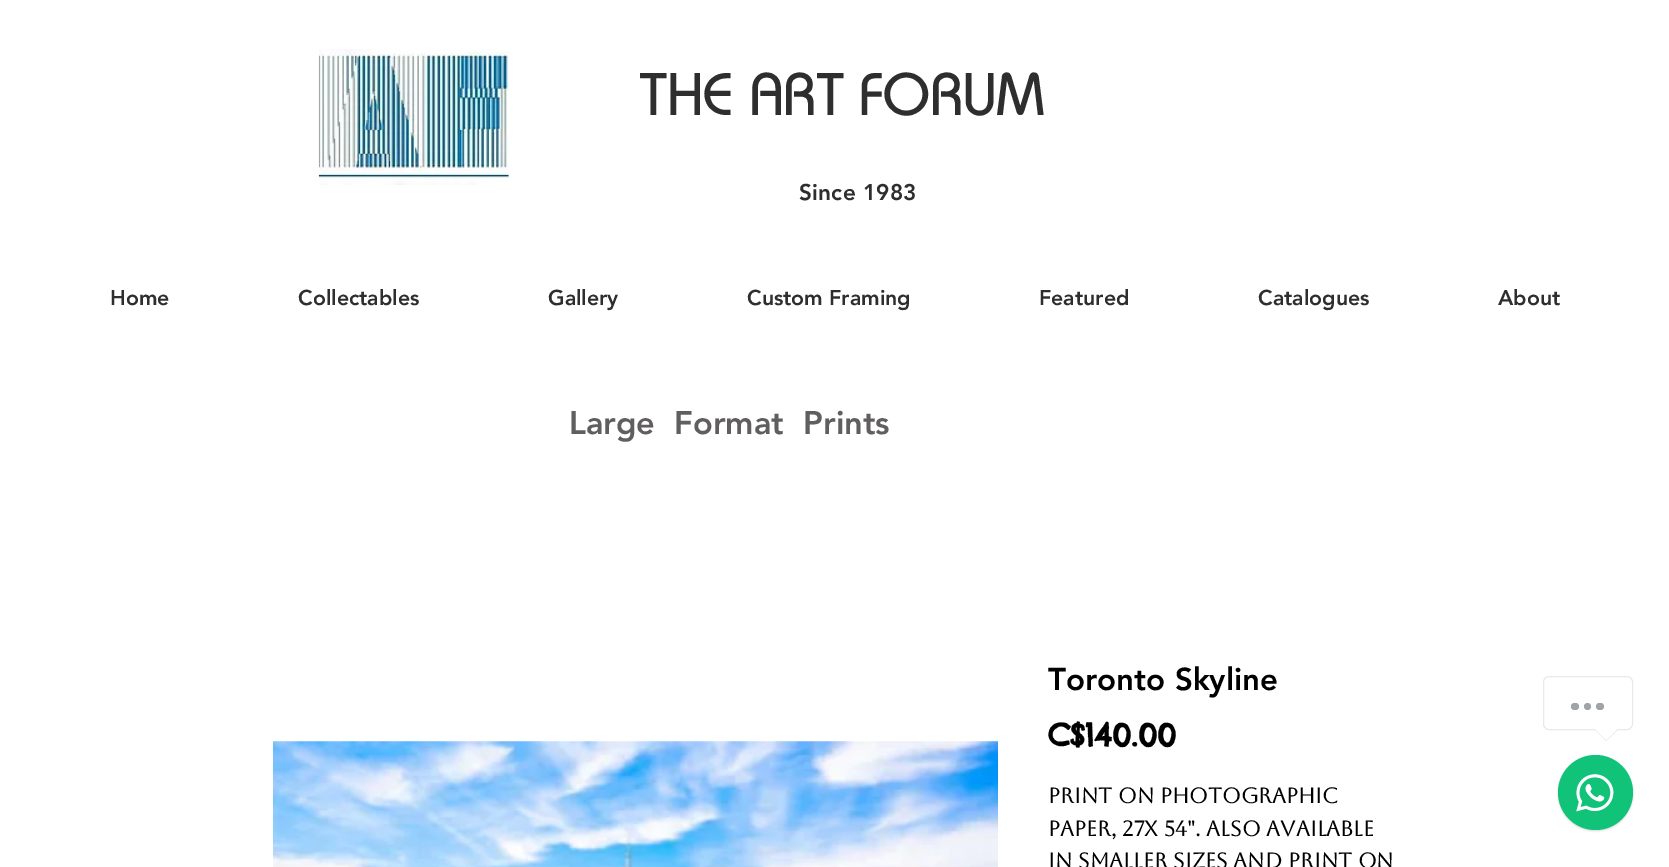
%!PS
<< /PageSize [1669 867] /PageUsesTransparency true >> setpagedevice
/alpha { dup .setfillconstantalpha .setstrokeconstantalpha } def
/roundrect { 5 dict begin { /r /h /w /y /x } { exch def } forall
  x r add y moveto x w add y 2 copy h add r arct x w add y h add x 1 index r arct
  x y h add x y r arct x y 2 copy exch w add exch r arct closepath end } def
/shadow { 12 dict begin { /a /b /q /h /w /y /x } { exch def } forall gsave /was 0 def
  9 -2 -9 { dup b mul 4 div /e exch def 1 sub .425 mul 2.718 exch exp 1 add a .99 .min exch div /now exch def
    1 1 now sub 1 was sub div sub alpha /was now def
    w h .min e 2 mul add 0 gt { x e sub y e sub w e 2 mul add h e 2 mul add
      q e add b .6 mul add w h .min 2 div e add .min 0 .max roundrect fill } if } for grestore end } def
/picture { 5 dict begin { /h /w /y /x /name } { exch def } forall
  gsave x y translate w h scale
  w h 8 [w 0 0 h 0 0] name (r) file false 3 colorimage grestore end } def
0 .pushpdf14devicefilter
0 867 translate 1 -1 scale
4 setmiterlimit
1 setgray
0 0 1669 867 rectfill
(img1.rgb) 318 49 191 136 picture
/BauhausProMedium-Medium [60 0 0 -60 0 0] selectfont
0.184 0.18 0.18 setrgbcolor
640 115 moveto (THE ART FORUM) show
/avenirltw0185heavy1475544-Black [22.5 0 0 -22.5 0 0] selectfont
799 200 moveto 0.25 0 (Since 1983) ashow
/avenirltw0185heavy1475544-Black [21.25 0 0 -21.25 0 0] selectfont
110 305 moveto (Home) show
298 305 moveto (Collectables) show
548 305 moveto (Gallery) show
747 305 moveto (Custom Framing) show
1039 305 moveto (Featured) show
1258 305 moveto (Catalogues) show
1498 305 moveto (About) show
/avenirltw0185heavy1475544-Black [32.5 0 0 -32.5 0 0] selectfont
0.376 0.369 0.369 setrgbcolor
569 434 moveto (Large  Format  Prints) show
(img2.rgb) 273 741 725 126 picture
/avenirltw0185heavy1475544-Black [31.25 0 0 -31.25 0 0] selectfont
0 setgray
1048 690 moveto (Toronto Skyline) show
/ChelseaMarket-Bold [31.25 0 0 -31.25 0 0] selectfont
1048 746 moveto (C$140.00) show
/Aboreto-Bold [21.25 0 0 -21.25 0 0] selectfont
1048 803 moveto (Print on photographic) show
1048 836 moveto (paper, 27x 54". Also available) show
1048 868 moveto (in smaller sizes and print on) show
0.914 setgray
1543.5 676.5 89 53 5.5 roundrect stroke
0.624 0.643 0.659 setrgbcolor
1571 703 8 7 3.5 roundrect fill
newpath 1587.5 706.5 3.5 0 360 arc closepath fill
1596 703 8 7 3.5 roundrect fill
0.914 setgray
newpath 1594 729 moveto 1619 729 lineto 1606 741 lineto closepath fill
1 setgray
newpath 1595 729 moveto 1617.5 729 lineto 1606 740 lineto closepath fill
0 setgray
1558 756 75 75 37.5 1 0.15 shadow
0.063 0.765 0.475 setrgbcolor
newpath 1595.5 792.5 37.5 0 360 arc closepath fill
(img3.rgb) 1576 774 38 38 picture
.poppdf14devicefilter showpage
